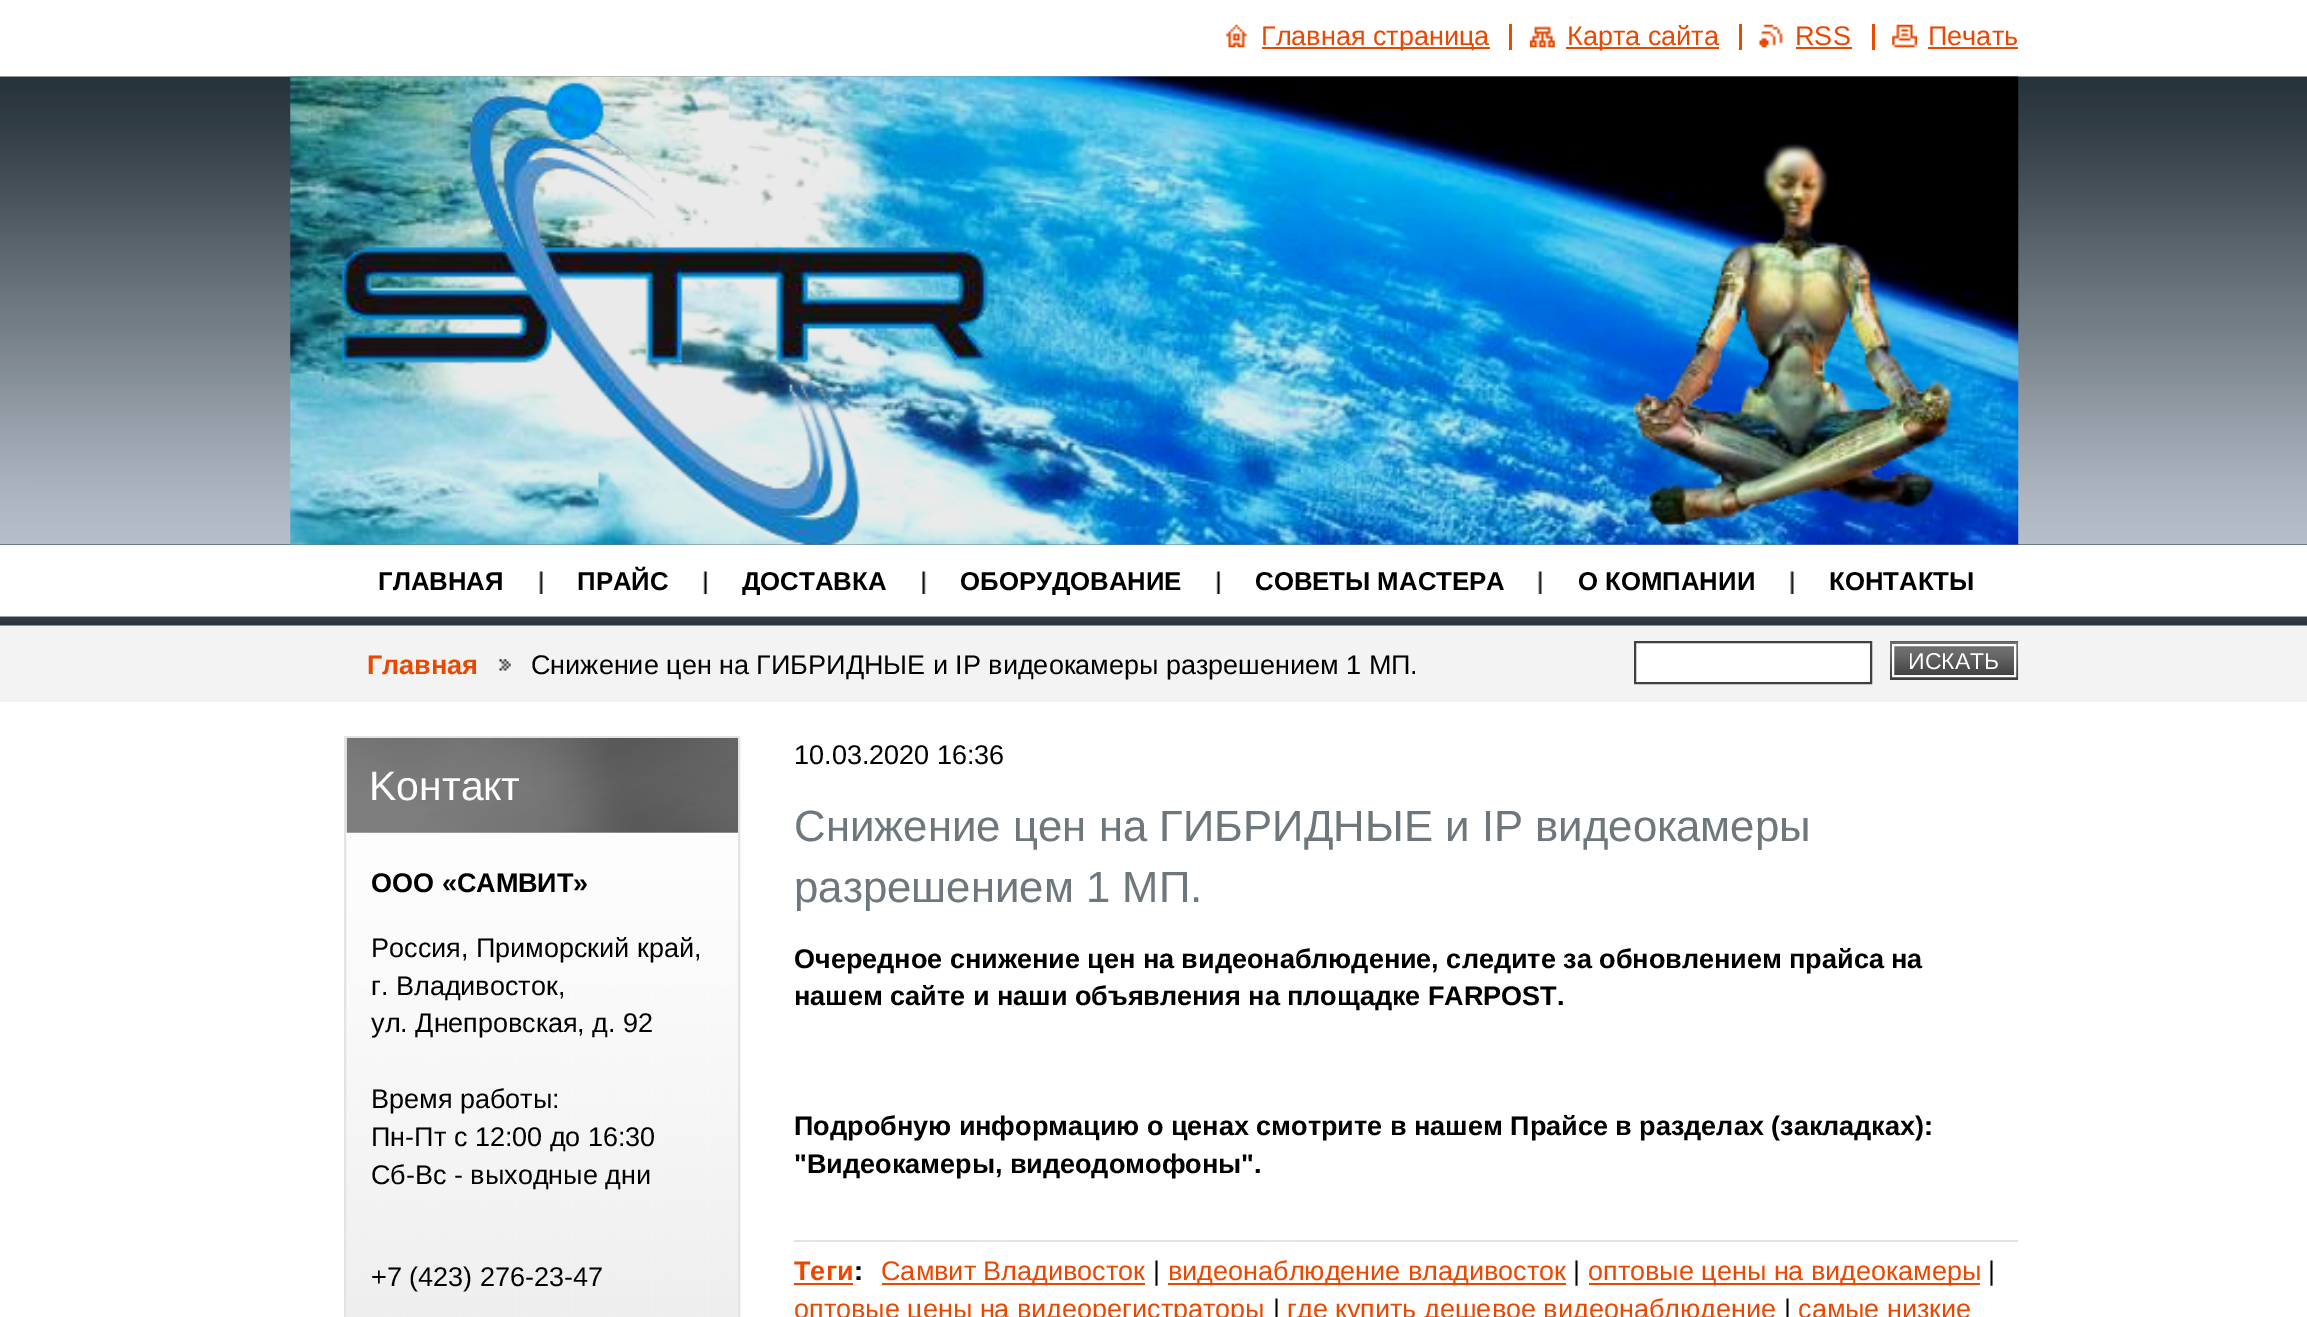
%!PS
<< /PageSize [2307 1317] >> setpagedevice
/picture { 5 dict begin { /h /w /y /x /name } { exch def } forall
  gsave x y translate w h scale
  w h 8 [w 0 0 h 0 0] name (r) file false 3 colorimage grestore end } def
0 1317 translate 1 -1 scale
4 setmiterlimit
1 setgray
0 0 2307 1317 rectfill
(img1.rgb) 1226 24 21 24 picture
0.925 0.278 0 setrgbcolor
1262 47 228 2 rectfill
/LiberationSans-Regular [27 0 0 -27 0 0] selectfont
1261 45 moveto (Главная страница) show
(img2.rgb) 1530 26 25 22 picture
1566 47 153 2 rectfill
1567 45 moveto (Карта сайта) show
0.906 0.298 0 setrgbcolor
1509 24 3 26 rectfill
(img3.rgb) 1759 24 24 24 picture
0.925 0.278 0 setrgbcolor
1795 45 moveto (RSS) show
0.906 0.298 0 setrgbcolor
1739 24 3 26 rectfill
0.925 0.278 0 setrgbcolor
1796 47 56 2 rectfill
(img4.rgb) 1892 24 25 24 picture
1928 45 moveto (Печать) show
0.906 0.298 0 setrgbcolor
1872 24 3 26 rectfill
0.925 0.278 0 setrgbcolor
1928 47 90 2 rectfill
0.153 0.2 0.227 setrgbcolor
0 544 2307 1 rectfill
(img5.rgb) 0 76 2307 469 picture
(img6.rgb) 290 76 1729 469 picture
/LiberationSans-Bold [25.75 0 0 -25.75 0 0] selectfont
0 setgray
378 590 moveto (ГЛАВНАЯ) show
(img7.rgb) 539 571 4 23 picture
577 590 moveto (ПРАЙС) show
(img8.rgb) 703 571 5 23 picture
742 590 moveto (ДОСТАВКА) show
(img9.rgb) 922 571 4 23 picture
960 590 moveto (ОБОРУДОВАНИЕ) show
(img8.rgb) 1216 571 5 23 picture
1255 590 moveto (СОВЕТЫ МАСТЕРА) show
(img7.rgb) 1538 571 4 23 picture
1578 590 moveto (О КОМПАНИИ) show
(img7.rgb) 1790 571 4 23 picture
1829 590 moveto (КОНТАКТЫ) show
0.953 setgray
0 625 2307 77 rectfill
(img10.rgb) 0 616 2307 10 picture
/LiberationSans-Bold [27 0 0 -27 0 0] selectfont
0.925 0.278 0 setrgbcolor
367 674 moveto (Главная) show
(img11.rgb) 499 659 12 12 picture
/LiberationSans-Regular [27 0 0 -27 0 0] selectfont
0 setgray
531 674 moveto (Снижение цен на ГИБРИДНЫЕ и IP видеокамеры разрешением 1 МП.) show
1 setgray
newpath 1635 642 moveto 1871 642 lineto 1871 683 lineto 1635 683 lineto closepath gsave fill grestore
0.251 setgray
2 setlinewidth
stroke
1890 641 128 39 rectfill
(img12.rgb) 1890 641 129 39 picture
1894 674 120 1 rectfill
(img13.rgb) 1894 646 120 28 picture
1 setgray
1893 645 122 31 rectstroke
/LiberationSans-Regular [23 0 0 -23 0 0] selectfont
1908 669 moveto (ИСКАТЬ) show
(img14.rgb) 346 738 392 579 picture
0.89 setgray
345 737 394 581 rectstroke
0.714 0.745 0.788 setrgbcolor
347 832 391 1 rectfill
(img15.rgb) 346 738 392 95 picture
/LiberationSans-Regular [41 0 0 -41 0 0] selectfont
1 setgray
369 800 moveto (Koнтакт) show
/LiberationSans-Bold [27 0 0 -27 0 0] selectfont
0 setgray
371 892 moveto (ООО «САМВИТ») show
/LiberationSans-Regular [27 0 0 -27 0 0] selectfont
371 957 moveto (Россия, Приморский край,) show
371 995 moveto (г. Владивосток,) show
371 1032 moveto (ул. Днепровская, д. 92) show
371 1108 moveto (Время работы:) show
371 1146 moveto (Пн-Пт с 12:00 до 16:30) show
371 1184 moveto (Сб-Вс - выходные дни) show
371 1286 moveto (+7 \(423\) 276-23-47) show
794 764 moveto (10.03.2020 16:36) show
/LiberationSans-Regular [43.75 0 0 -43.75 0 0] selectfont
0.431 0.471 0.486 setrgbcolor
794 841 moveto (Снижение цен на ГИБРИДНЫЕ и IP видеокамеры) show
794 902 moveto (разрешением 1 МП.) show
/LiberationSans-Bold [27 0 0 -27 0 0] selectfont
0 setgray
794 968 moveto (Очередное снижение цен на видеонаблюдение, следите за обновлением прайса на) show
794 1005 moveto (нашем сайте и наши объявления на площадке FARPOST.) show
794 1135 moveto (Подробную информацию о ценах смотрите в нашем Прайсе в разделах \(закладках\):) show
794 1173 moveto ("Видеокамеры, видеодомофоны".) show
0.89 setgray
794 1240 1224 2 rectfill
0.925 0.278 0 setrgbcolor
794 1280 moveto (Теги) show
0 setgray
854 1280 moveto (:) show
0.925 0.278 0 setrgbcolor
794 1283 59 2 rectfill
882 1283 263 2 rectfill
/LiberationSans-Regular [27 0 0 -27 0 0] selectfont
881 1280 moveto (Самвит Владивосток) show
0 setgray
1153 1280 moveto (|) show
0.925 0.278 0 setrgbcolor
1168 1283 398 2 rectfill
1168 1280 moveto (видеонаблюдение владивосток) show
0 setgray
1573 1280 moveto (|) show
0.925 0.278 0 setrgbcolor
1589 1283 391 2 rectfill
1588 1280 moveto (оптовые цены на видеокамеры) show
0 setgray
1988 1280 moveto (|) show
0.925 0.278 0 setrgbcolor
794 1318 moveto (оптовые цены на видеорегистраторы) show
0 setgray
1273 1318 moveto (|) show
0.925 0.278 0 setrgbcolor
1287 1318 moveto (где купить дешевое видеонаблюдение) show
0 setgray
1784 1318 moveto (|) show
0.925 0.278 0 setrgbcolor
1798 1318 moveto (самые низкие) show
showpage
